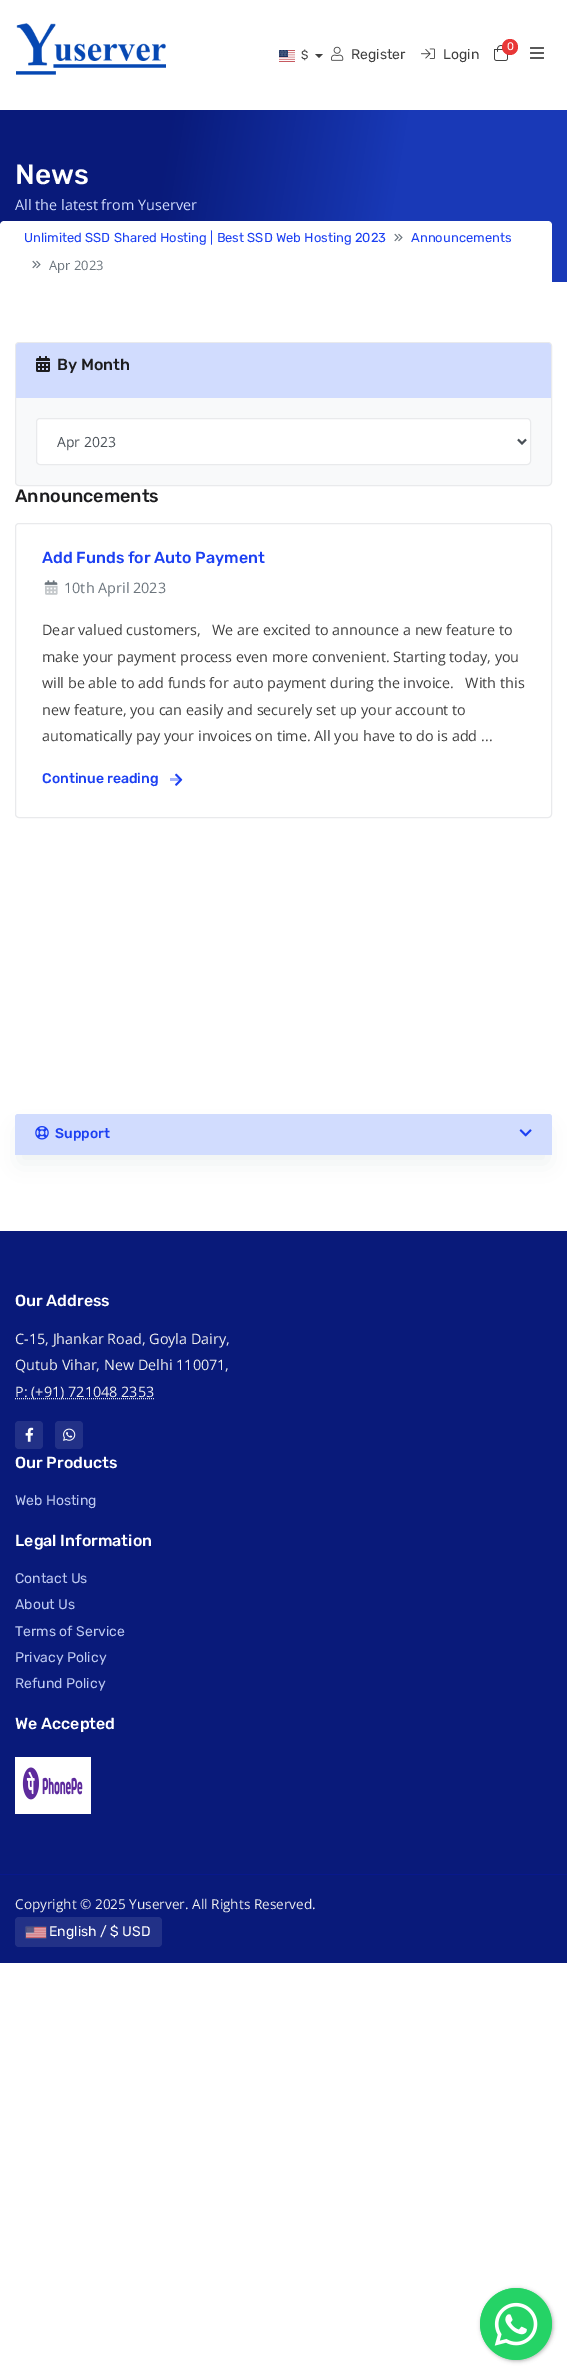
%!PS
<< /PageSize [567 2375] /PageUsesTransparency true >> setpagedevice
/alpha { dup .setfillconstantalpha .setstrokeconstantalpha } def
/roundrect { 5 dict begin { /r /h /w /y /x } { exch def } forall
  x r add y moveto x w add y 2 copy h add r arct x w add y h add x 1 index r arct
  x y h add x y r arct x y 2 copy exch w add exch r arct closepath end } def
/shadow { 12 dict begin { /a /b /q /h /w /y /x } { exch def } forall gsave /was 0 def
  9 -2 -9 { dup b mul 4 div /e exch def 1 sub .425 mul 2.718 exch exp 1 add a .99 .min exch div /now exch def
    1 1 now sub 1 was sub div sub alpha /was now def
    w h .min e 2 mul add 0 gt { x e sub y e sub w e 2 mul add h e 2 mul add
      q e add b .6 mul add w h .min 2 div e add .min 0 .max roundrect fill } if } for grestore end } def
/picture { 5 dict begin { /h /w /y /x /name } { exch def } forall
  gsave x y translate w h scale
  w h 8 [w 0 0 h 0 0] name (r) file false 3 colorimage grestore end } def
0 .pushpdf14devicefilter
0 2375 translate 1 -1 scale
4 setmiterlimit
1 setgray
0 0 567 2375 rectfill
(img1.rgb) 16 23 150 52 picture
(img2.rgb) 279 50 16 12 picture
/Rubik-Regular [12 0 0 -12 0 0] selectfont
0.251 setgray
301 59 moveto ($) show
newpath 315 54 moveto 323 54 lineto 319 58 lineto closepath fill
(img3.rgb) 331 46 13 15 picture
/Rubik-Regular [14 0 0 -14 0 0] selectfont
351 59 moveto (Register) show
(img4.rgb) 421 48 14 11 picture
443 59 moveto (Login) show
(img5.rgb) 494 45 14 16 picture
0.91 0.216 0.216 setrgbcolor
newpath 510 47 8 0 360 arc closepath fill
/Rubik-Regular [11 0 0 -11 0 0] selectfont
1 setgray
507 50 moveto (0) show
(img6.rgb) 530 47 14 12 picture
gsave newpath 0 110 moveto 567 110 lineto 567 282 lineto 0 282 lineto closepath clip newpath
<< /ShadingType 2 /ColorSpace /DeviceRGB /Coords [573 243 -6.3 149] /Extend [true true] /Function << /FunctionType 3 /Domain [0 1] /Functions [<< /FunctionType 2 /Domain [0 1] /C0 [0.098 0.224 0.718] /C1 [0.098 0.224 0.718] /N 1 >> << /FunctionType 2 /Domain [0 1] /C0 [0.098 0.224 0.718] /C1 [0.035 0.102 0.478] /N 1 >> << /FunctionType 2 /Domain [0 1] /C0 [0.035 0.102 0.478] /C1 [0.035 0.102 0.478] /N 1 >>] /Bounds [0.31 0.71] /Encode [0 1 0 1 0 1] >> >> shfill grestore
/Rubik-Medium [28 0 0 -28 0 0] selectfont
15 184 moveto (News) show
/OpenSans-Regular [14.4 0 0 -14.4 0 0] selectfont
0.82 0.863 0.996 setrgbcolor
15 210 moveto (All the latest from Yuserver) show
1 setgray
newpath 4 221 moveto 548 221 lineto 550 221 552 223 552 225 curveto 552 282 lineto 0 282 lineto 0 225 lineto 0 223 2 221 4 221 curveto closepath fill
/Rubik-Regular [13 0 0 -13 0 0] selectfont
0.11 0.251 0.949 setrgbcolor
24 242 moveto (Unlimited SSD Shared Hosting | Best SSD Web Hosting 2023) show
(img7.rgb) 394 233 9 9 picture
411 242 moveto (Announcements) show
(img7.rgb) 32 260 9 9 picture
/OpenSans-Regular [13 0 0 -13 0 0] selectfont
0.424 0.459 0.49 setrgbcolor
49 270 moveto (Apr 2023) show
0.973 0.976 0.98 setrgbcolor
15.5 342.5 536 143 3.5 roundrect gsave fill grestore
0.914 0.918 0.925 setrgbcolor
stroke
0.82 0.863 0.996 setrgbcolor
newpath 19 343 moveto 548 343 lineto 549.5 343 551 344.5 551 346 curveto 551 398 lineto 16 398 lineto 16 346 lineto 16 344.5 17.5 343 19 343 curveto closepath fill
(img8.rgb) 36 356 14 16 picture
/Rubik-Medium [16 0 0 -16 0 0] selectfont
0.114 0.114 0.122 setrgbcolor
57 370 moveto (By Month) show
1 setgray
36.5 418.5 494 46 3.5 roundrect gsave fill grestore
0.914 0.918 0.925 setrgbcolor
stroke
0.286 0.314 0.341 setrgbcolor
2 setlinewidth
newpath 518 439.5 moveto 522 443.5 lineto 526 439.5 lineto stroke
/OpenSans-Regular [14 0 0 -14 0 0] selectfont
57 447 moveto (Apr 2023) show
/Rubik-Medium [18 0 0 -18 0 0] selectfont
0.114 0.114 0.122 setrgbcolor
15 502 moveto (Announcements) show
0.914 0.918 0.925 setrgbcolor
1 setlinewidth
15.5 523.5 536 294 3.5 roundrect stroke
/Rubik-Medium [16 0 0 -16 0 0] selectfont
0.11 0.251 0.949 setrgbcolor
42 563 moveto (Add Funds for Auto Payment) show
(img9.rgb) 44 580 14 5 picture
(img10.rgb) 45 585 13 10 picture
/OpenSans-Regular [14.4 0 0 -14.4 0 0] selectfont
0.424 0.459 0.49 setrgbcolor
64 593 moveto (10th April 2023) show
0.251 setgray
42 635 moveto (Dear valued customers,   We are excited to announce a new feature to) show
42 662 moveto (make your payment process even more convenient. Starting today, you) show
42 688 moveto (will be able to add funds for auto payment during the invoice.   With this) show
42 715 moveto (new feature, you can easily and securely set up your account to) show
42 741 moveto (automatically pay your invoices on time. All you have to do is add ...) show
/Rubik-Medium [14 0 0 -14 0 0] selectfont
0.11 0.251 0.949 setrgbcolor
42 783 moveto (Continue reading) show
(img11.rgb) 175 773 8 13 picture
0.4 alpha
170 778 10 3 rectfill
1 alpha
0.569 0.62 0.671 setrgbcolor
19 1130 529 33 0 12 0.16 shadow
0.82 0.863 0.996 setrgbcolor
newpath 18 1114 moveto 549 1114 lineto 550.5 1114 552 1115.5 552 1117 curveto 552 1155 lineto 15 1155 lineto 15 1117 lineto 15 1115.5 16.5 1114 18 1114 curveto closepath fill
(img12.rgb) 35 1126 14 14 picture
0.11 0.251 0.949 setrgbcolor
55 1138 moveto (Support) show
(img13.rgb) 519 1129 13 8 picture
0.035 0.102 0.478 setrgbcolor
0 1231 567 732 rectfill
/Rubik-Medium [16 0 0 -16 0 0] selectfont
1 setgray
15 1306 moveto (Our Address) show
/OpenSans-Regular [14.4 0 0 -14.4 0 0] selectfont
0.933 setgray
15 1344 moveto (C-15, Jhankar Road, Goyla Dairy,) show
15 1370 moveto (Qutub Vihar, New Delhi 110071,) show
[1 1] 0 setdash
newpath 15 1398.5 moveto 154 1398.5 lineto stroke
15 1397 moveto (P: \(+91\) 721048 2353) show
0.133 0.192 0.529 setrgbcolor
15 1421 28 28 4 roundrect fill
(img14.rgb) 25 1427 9 15 picture
55 1421 28 28 4 roundrect fill
(img15.rgb) 63 1428 13 13 picture
/Rubik-Medium [16 0 0 -16 0 0] selectfont
1 setgray
15 1468 moveto (Our Products) show
/Rubik-Regular [14 0 0 -14 0 0] selectfont
0.741 0.788 0.945 setrgbcolor
15 1505 moveto (Web Hosting) show
/Rubik-Medium [16 0 0 -16 0 0] selectfont
1 setgray
15 1546 moveto (Legal Information) show
/Rubik-Regular [14 0 0 -14 0 0] selectfont
0.741 0.788 0.945 setrgbcolor
15 1583 moveto (Contact Us) show
15 1609 moveto (About Us) show
15 1636 moveto (Terms of Service) show
15 1662 moveto (Privacy Policy) show
15 1688 moveto (Refund Policy) show
/Rubik-Medium [16 0 0 -16 0 0] selectfont
1 setgray
15 1729 moveto (We Accepted) show
(img16.rgb) 15 1757 76 57 picture
0.031 0.094 0.549 setrgbcolor
0 1874 567 1 rectfill
/OpenSans-Regular [13.6 0 0 -13.6 0 0] selectfont
0.933 setgray
15 1909 moveto (Copyright © 2025 Yuserver. All Rights Reserved.) show
0.133 0.192 0.529 setrgbcolor
15 1917 147 30 4 roundrect fill
0.533 setgray
26 1927 20 11 0 0.5 1 shadow
(img17.rgb) 26 1927 20 11 picture
/Rubik-Regular [14 0 0 -14 0 0] selectfont
1 setgray
49 1936 moveto (English / $ USD) show
0.235 setgray
481 2289 72 72 36 2 0.4 shadow
(img18.rgb) 480 2288 72 72 picture
.poppdf14devicefilter showpage
